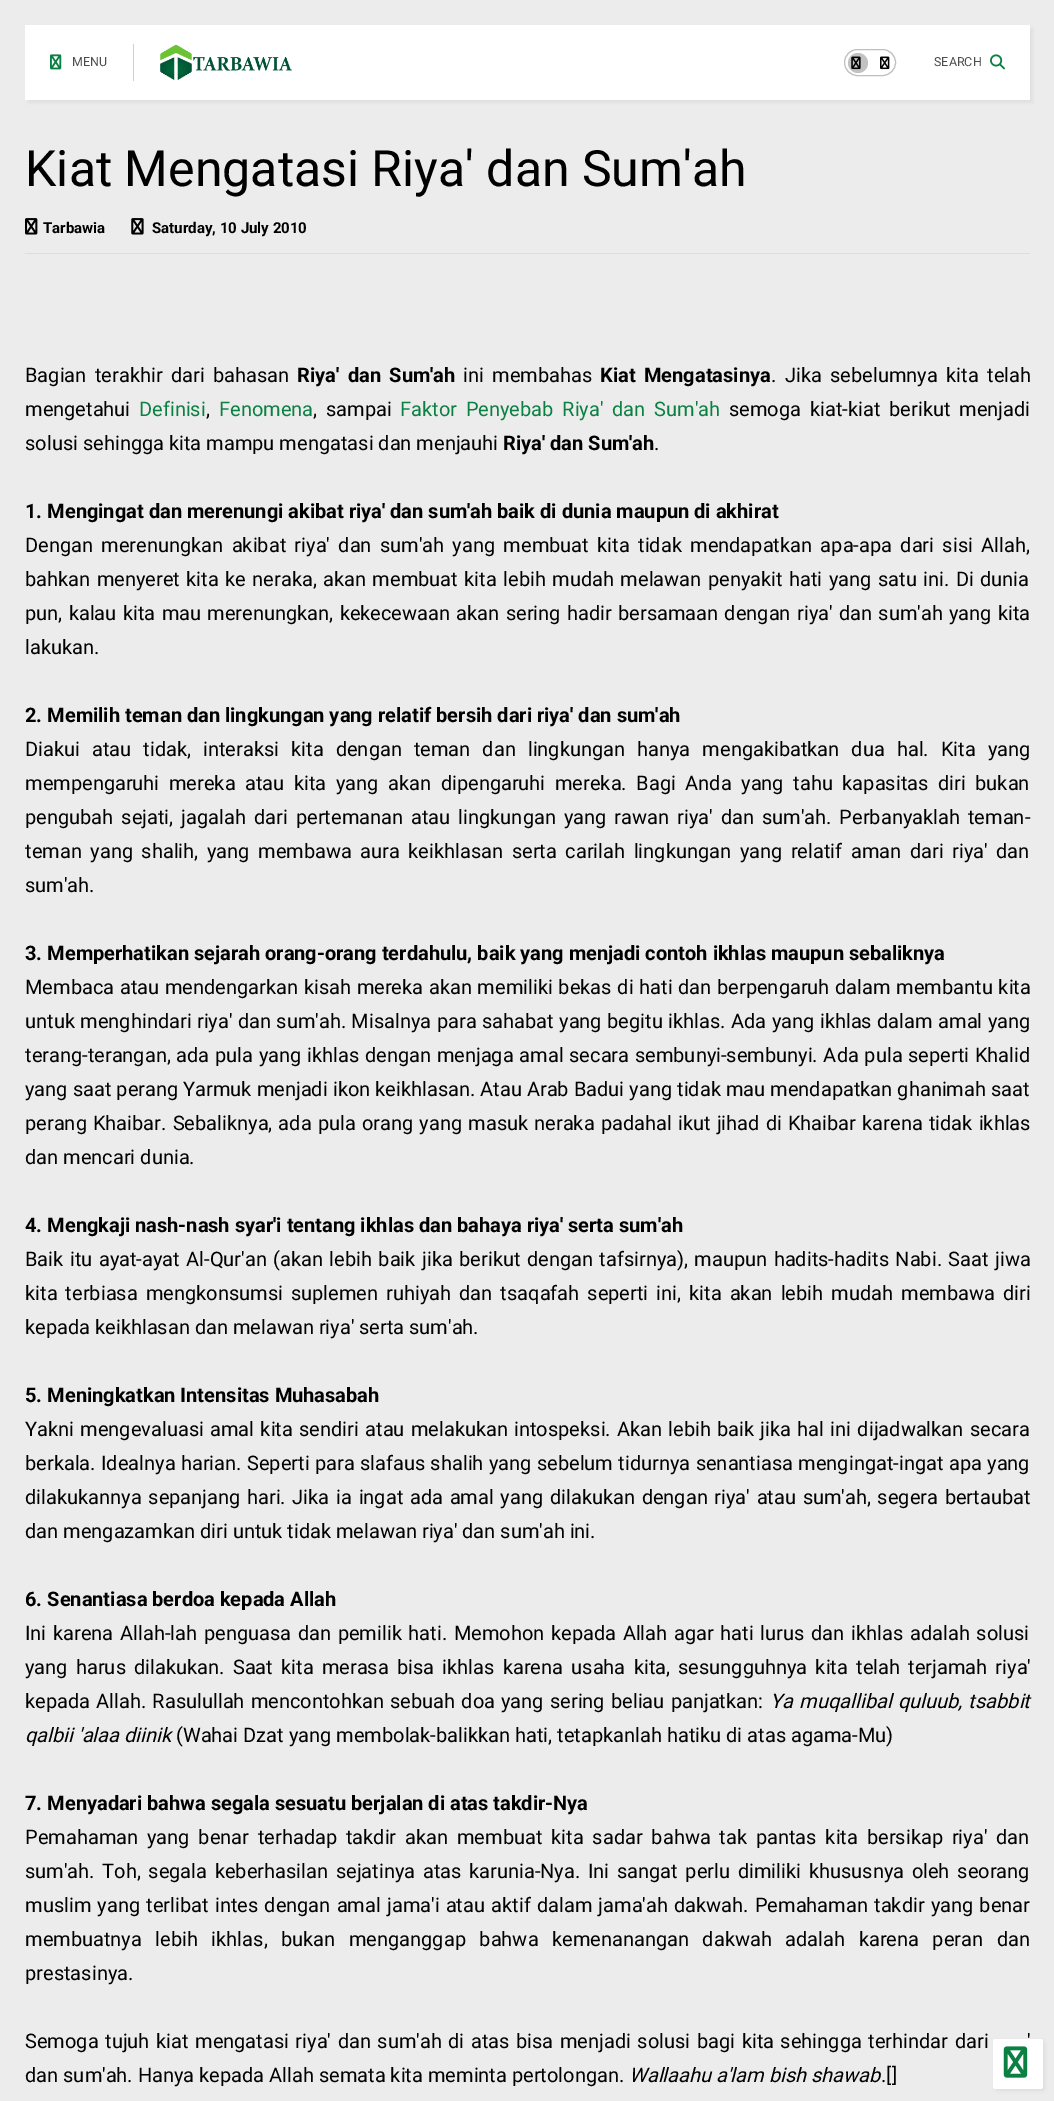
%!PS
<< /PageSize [1054 2101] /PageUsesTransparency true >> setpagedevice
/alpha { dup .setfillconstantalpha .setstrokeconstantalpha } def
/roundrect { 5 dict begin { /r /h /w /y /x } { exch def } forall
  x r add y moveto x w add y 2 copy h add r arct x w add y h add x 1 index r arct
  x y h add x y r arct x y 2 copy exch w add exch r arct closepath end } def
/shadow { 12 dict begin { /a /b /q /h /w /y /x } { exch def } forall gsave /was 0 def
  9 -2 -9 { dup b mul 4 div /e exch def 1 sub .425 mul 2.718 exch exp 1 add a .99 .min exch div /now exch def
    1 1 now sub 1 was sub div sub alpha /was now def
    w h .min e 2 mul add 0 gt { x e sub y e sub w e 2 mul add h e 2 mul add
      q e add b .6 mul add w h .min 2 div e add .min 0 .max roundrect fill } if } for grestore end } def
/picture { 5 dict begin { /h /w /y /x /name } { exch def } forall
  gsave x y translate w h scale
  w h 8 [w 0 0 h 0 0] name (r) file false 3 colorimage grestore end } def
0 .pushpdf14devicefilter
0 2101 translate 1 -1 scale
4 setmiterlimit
0.925 setgray
0 0 1054 2101 rectfill
0.471 setgray
28 28 1005 75 0 2 0.12 shadow
1 setgray
25 25 1005 75 rectfill
(img1.rgb) 50 54 12 16 picture
/Roboto-Regular [12.5 0 0 -12.5 0 0] selectfont
0.302 setgray
72 66 moveto (MENU) show
0.812 setgray
133 44 1 37 rectfill
(img2.rgb) 160 45 132 35 picture
0.749 setgray
844.5 49.5 51 26 13 roundrect stroke
0.761 setgray
newpath 858 63 10 0 360 arc closepath fill
(img3.rgb) 851 56 10 14 picture
(img4.rgb) 880 56 10 14 picture
0.302 setgray
934 66 moveto (SEARCH) show
(img5.rgb) 990 54 15 16 picture
/Roboto-Regular [50 0 0 -50 0 0] selectfont
0 setgray
25 186 moveto (Kiat Mengatasi Riya' dan Sum'ah) show
0.867 setgray
25 253 1005 1 rectfill
(img6.rgb) 25 218 13 17 picture
/Roboto-Bold [15 0 0 -15 0 0] selectfont
0 setgray
43 233 moveto (Tarbawia) show
(img7.rgb) 131 218 13 17 picture
152 233 moveto (Saturday, 10 July 2010) show
/Roboto-Regular [20 0 0 -20 0 0] selectfont
25 382 moveto 3.5 0 32 (Bagian terakhir dari bahasan) widthshow
/Roboto-Bold [20 0 0 -20 0 0] selectfont
297 382 moveto 3.5 0 32 (Riya' dan Sum'ah) widthshow
/Roboto-Regular [20 0 0 -20 0 0] selectfont
463 382 moveto 3.5 0 32 (ini membahas) widthshow
/Roboto-Bold [20 0 0 -20 0 0] selectfont
600 382 moveto 3.5 0 32 (Kiat Mengatasinya) widthshow
/Roboto-Regular [20 0 0 -20 0 0] selectfont
771 382 moveto 3.5 0 32 (. Jika sebelumnya kita telah) widthshow
25 416 moveto (mengetahui) show
0.043 0.502 0.263 setrgbcolor
139 416 moveto (Definisi) show
0 setgray
206 416 moveto (,) show
0.043 0.502 0.263 setrgbcolor
219 416 moveto (Fenomena) show
0 setgray
313 416 moveto 3.9 0 32 (, sampai) widthshow
0.043 0.502 0.263 setrgbcolor
400 416 moveto 3.9 0 32 (Faktor Penyebab Riya' dan Sum'ah) widthshow
0 setgray
729 416 moveto 3.9 0 32 (semoga kiat-kiat berikut menjadi) widthshow
25 450 moveto (solusi sehingga kita mampu mengatasi dan menjauhi) show
/Roboto-Bold [20 0 0 -20 0 0] selectfont
503 450 moveto (Riya' dan Sum'ah) show
/Roboto-Regular [20 0 0 -20 0 0] selectfont
654 450 moveto (.) show
/Roboto-Bold [20 0 0 -20 0 0] selectfont
25 518 moveto (1. Mengingat dan merenungi akibat riya' dan sum'ah baik di dunia maupun di akhirat) show
/Roboto-Regular [20 0 0 -20 0 0] selectfont
25 552 moveto 3.4 0 32 (Dengan merenungkan akibat riya' dan sum'ah yang membuat kita tidak mendapatkan apa-apa dari sisi Allah,) widthshow
25 586 moveto 1.5 0 32 (bahkan menyeret kita ke neraka, akan membuat kita lebih mudah melawan penyakit hati yang satu ini. Di dunia) widthshow
25 620 moveto 1.4 0 32 (pun, kalau kita mau merenungkan, kekecewaan akan sering hadir bersamaan dengan riya' dan sum'ah yang kita) widthshow
25 654 moveto (lakukan.) show
/Roboto-Bold [20 0 0 -20 0 0] selectfont
25 722 moveto (2. Memilih teman dan lingkungan yang relatif bersih dari riya' dan sum'ah) show
/Roboto-Regular [20 0 0 -20 0 0] selectfont
25 756 moveto 7.1 0 32 (Diakui atau tidak, interaksi kita dengan teman dan lingkungan hanya mengakibatkan dua hal. Kita yang) widthshow
25 790 moveto 4.6 0 32 (mempengaruhi mereka atau kita yang akan dipengaruhi mereka. Bagi Anda yang tahu kapasitas diri bukan) widthshow
25 824 moveto 3.1 0 32 (pengubah sejati, jagalah dari pertemanan atau lingkungan yang rawan riya' dan sum'ah. Perbanyaklah teman-) widthshow
25 858 moveto 3.6 0 32 (teman yang shalih, yang membawa aura keikhlasan serta carilah lingkungan yang relatif aman dari riya' dan) widthshow
25 892 moveto (sum'ah.) show
/Roboto-Bold [20 0 0 -20 0 0] selectfont
25 960 moveto (3. Memperhatikan sejarah orang-orang terdahulu, baik yang menjadi contoh ikhlas maupun sebaliknya) show
/Roboto-Regular [20 0 0 -20 0 0] selectfont
25 994 moveto 0.75 0 32 (Membaca atau mendengarkan kisah mereka akan memiliki bekas di hati dan berpengaruh dalam membantu kita) widthshow
25 1028 moveto 0.5 0 32 (untuk menghindari riya' dan sum'ah. Misalnya para sahabat yang begitu ikhlas. Ada yang ikhlas dalam amal yang) widthshow
25 1062 moveto 0.75 0 32 (terang-terangan, ada pula yang ikhlas dengan menjaga amal secara sembunyi-sembunyi. Ada pula seperti Khalid) widthshow
25 1096 moveto 0.1 0 32 (yang saat perang Yarmuk menjadi ikon keikhlasan. Atau Arab Badui yang tidak mau mendapatkan ghanimah saat) widthshow
25 1130 moveto 1.2 0 32 (perang Khaibar. Sebaliknya, ada pula orang yang masuk neraka padahal ikut jihad di Khaibar karena tidak ikhlas) widthshow
25 1164 moveto (dan mencari dunia.) show
/Roboto-Bold [20 0 0 -20 0 0] selectfont
25 1232 moveto (4. Mengkaji nash-nash syar'i tentang ikhlas dan bahaya riya' serta sum'ah) show
/Roboto-Regular [20 0 0 -20 0 0] selectfont
25 1266 moveto 1.5 0 32 (Baik itu ayat-ayat Al-Qur'an \(akan lebih baik jika berikut dengan tafsirnya\), maupun hadits-hadits Nabi. Saat jiwa) widthshow
25 1300 moveto 3.1 0 32 (kita terbiasa mengkonsumsi suplemen ruhiyah dan tsaqafah seperti ini, kita akan lebih mudah membawa diri) widthshow
25 1334 moveto (kepada keikhlasan dan melawan riya' serta sum'ah.) show
/Roboto-Bold [20 0 0 -20 0 0] selectfont
25 1402 moveto (5. Meningkatkan Intensitas Muhasabah) show
/Roboto-Regular [20 0 0 -20 0 0] selectfont
25 1436 moveto 1.3 0 32 (Yakni mengevaluasi amal kita sendiri atau melakukan intospeksi. Akan lebih baik jika hal ini dijadwalkan secara) widthshow
25 1470 moveto 0.4 0 32 (berkala. Idealnya harian. Seperti para slafaus shalih yang sebelum tidurnya senantiasa mengingat-ingat apa yang) widthshow
25 1504 moveto 1.75 0 32 (dilakukannya sepanjang hari. Jika ia ingat ada amal yang dilakukan dengan riya' atau sum'ah, segera bertaubat) widthshow
25 1538 moveto (dan mengazamkan diri untuk tidak melawan riya' dan sum'ah ini.) show
/Roboto-Bold [20 0 0 -20 0 0] selectfont
25 1606 moveto (6. Senantiasa berdoa kepada Allah) show
/Roboto-Regular [20 0 0 -20 0 0] selectfont
25 1640 moveto 1.75 0 32 (Ini karena Allah-lah penguasa dan pemilik hati. Memohon kepada Allah agar hati lurus dan ikhlas adalah solusi) widthshow
25 1674 moveto 3.25 0 32 (yang harus dilakukan. Saat kita merasa bisa ikhlas karena usaha kita, sesungguhnya kita telah terjamah riya') widthshow
25 1708 moveto 1.25 0 32 (kepada Allah. Rasulullah mencontohkan sebuah doa yang sering beliau panjatkan:) widthshow
/Roboto-Italic [20 0 0 -20 0 0] selectfont
770 1708 moveto 1.25 0 32 (Ya muqallibal quluub, tsabbit) widthshow
25 1742 moveto (qalbii 'alaa diinik) show
/Roboto-Regular [20 0 0 -20 0 0] selectfont
176 1742 moveto (\(Wahai Dzat yang membolak-balikkan hati, tetapkanlah hatiku di atas agama-Mu\)) show
/Roboto-Bold [20 0 0 -20 0 0] selectfont
25 1810 moveto (7. Menyadari bahwa segala sesuatu berjalan di atas takdir-Nya) show
/Roboto-Regular [20 0 0 -20 0 0] selectfont
25 1844 moveto 3.9 0 32 (Pemahaman yang benar terhadap takdir akan membuat kita sadar bahwa tak pantas kita bersikap riya' dan) widthshow
25 1878 moveto 2.75 0 32 (sum'ah. Toh, segala keberhasilan sejatinya atas karunia-Nya. Ini sangat perlu dimiliki khususnya oleh seorang) widthshow
25 1912 moveto 1.25 0 32 (muslim yang terlibat intes dengan amal jama'i atau aktif dalam jama'ah dakwah. Pemahaman takdir yang benar) widthshow
25 1946 moveto 8.6 0 32 (membuatnya lebih ikhlas, bukan menganggap bahwa kemenanangan dakwah adalah karena peran dan) widthshow
25 1980 moveto (prestasinya.) show
25 2048 moveto 1.6 0 32 (Semoga tujuh kiat mengatasi riya' dan sum'ah di atas bisa menjadi solusi bagi kita sehingga terhindar dari) widthshow
1027 2048 moveto 1.6 0 32 (') widthshow
25 2082 moveto (dan sum'ah. Hanya kepada Allah semata kita meminta pertolongan.) show
/Roboto-Italic [20 0 0 -20 0 0] selectfont
629 2082 moveto (Wallaahu a'lam bish shawab) show
/Roboto-Regular [20 0 0 -20 0 0] selectfont
881 2082 moveto (.[]) show
995 2041 50 50 2.5 2 0.05 shadow
1 setgray
993 2039 50 50 2.5 roundrect fill
(img8.rgb) 1003 2046 25 32 picture
.poppdf14devicefilter showpage
